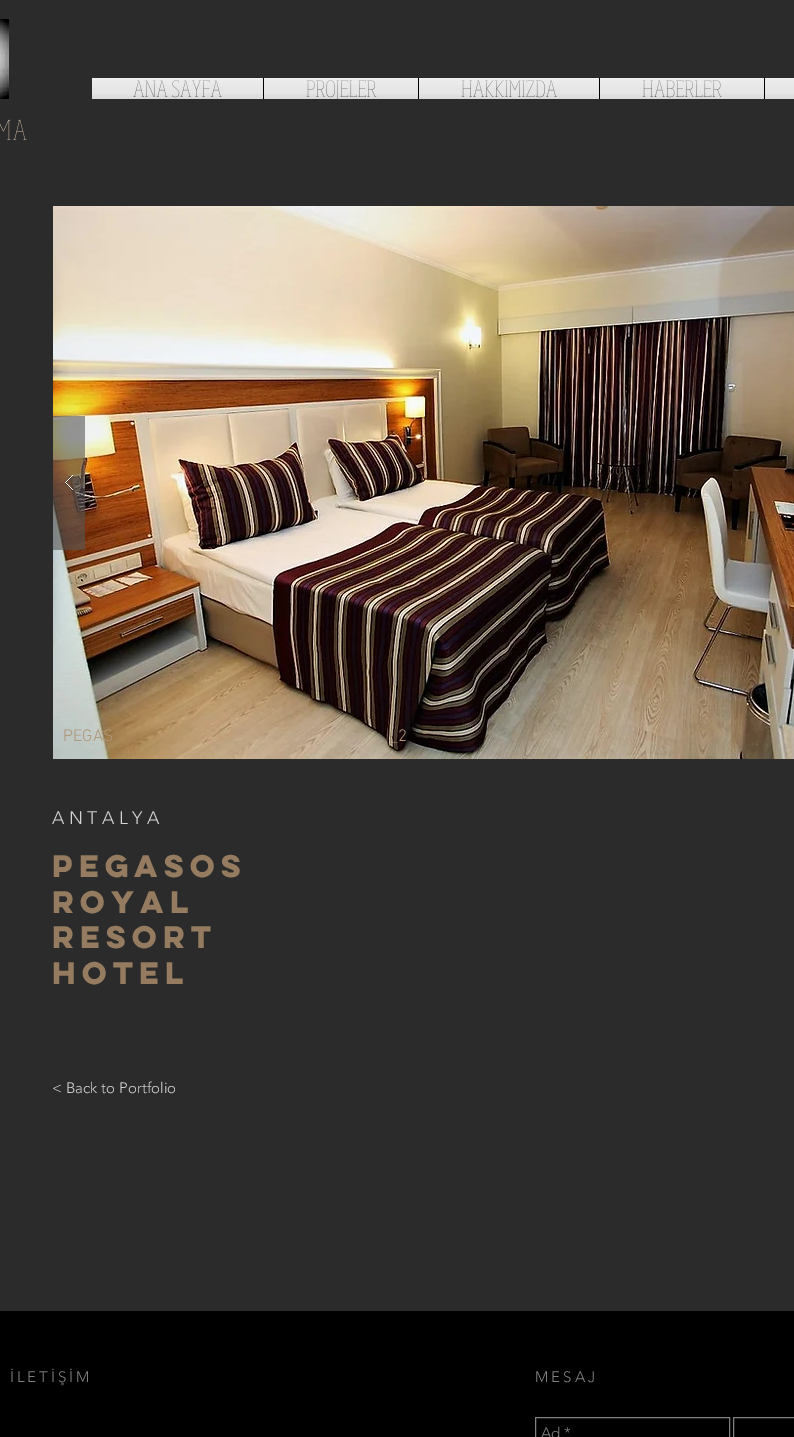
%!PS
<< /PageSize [794 1437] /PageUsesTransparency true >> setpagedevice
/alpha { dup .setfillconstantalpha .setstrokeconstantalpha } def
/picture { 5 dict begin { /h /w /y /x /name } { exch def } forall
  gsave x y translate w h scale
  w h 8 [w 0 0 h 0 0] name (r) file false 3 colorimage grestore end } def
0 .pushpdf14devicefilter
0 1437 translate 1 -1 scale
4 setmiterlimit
0.169 setgray
0 0 794 1437 rectfill
(img1.rgb) 0 19 9 80 picture
1 setgray
92 78 171 21 rectfill
(img4.rgb) 133 80 89 18 picture
(img2.rgb) 133 80 89 18 picture
(img3.rgb) 92 78 171 21 picture
264 78 154 21 rectfill
0 setgray
263 78 1 21 rectfill
(img7.rgb) 306 80 71 19 picture
(img5.rgb) 306 80 70 19 picture
(img6.rgb) 264 78 154 21 picture
1 setgray
419 78 180 21 rectfill
0 setgray
418 78 1 21 rectfill
(img10.rgb) 461 80 96 18 picture
(img8.rgb) 461 80 96 18 picture
(img9.rgb) 419 78 180 21 picture
1 setgray
600 78 164 21 rectfill
0 setgray
599 78 1 21 rectfill
(img13.rgb) 642 80 80 18 picture
(img11.rgb) 642 80 80 18 picture
(img12.rgb) 600 78 164 21 picture
1 setgray
765 78 29 21 rectfill
0 setgray
764 78 1 21 rectfill
(img14.rgb) 765 78 29 21 picture
(img15.rgb) 0 119 27 21 picture
(img17.rgb) 53 206 741 553 picture
0.6 alpha
0.333 setgray
53 416 32 134 rectfill
1 alpha
(img16.rgb) 65 475 8 16 picture
/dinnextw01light-Light [17 0 0 -17 0 0] selectfont
0.678 0.596 0.478 setrgbcolor
63 741 moveto (PEGAS) show
390 741 moveto (_2) show
/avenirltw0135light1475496-Light [18 0 0 -18 0 0] selectfont
0.835 setgray
52 824 moveto 4.5 0 (ANTALYA) ashow
/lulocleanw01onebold-Bold [28 0 0 -28 0 0] selectfont
0.584 0.482 0.373 setrgbcolor
52 877 moveto (PEGASOS) show
52 913 moveto (ROYAL) show
52 948 moveto (RESORT) show
52 984 moveto (HOTEL) show
/avenirltw0135light1475496-Light [15 0 0 -15 0 0] selectfont
0.835 setgray
52 1093 moveto (< Back to Portfolio) show
0 setgray
0 1311 794 126 rectfill
0.502 setgray
10 1382 moveto 3 0 (İLETİŞİM) ashow
535 1382 moveto 3 0 (MESAJ) ashow
535.5 1417.5 194 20 rectstroke
541 1438 moveto (Ad *) show
733.5 1417.5 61 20 rectstroke
.poppdf14devicefilter showpage
